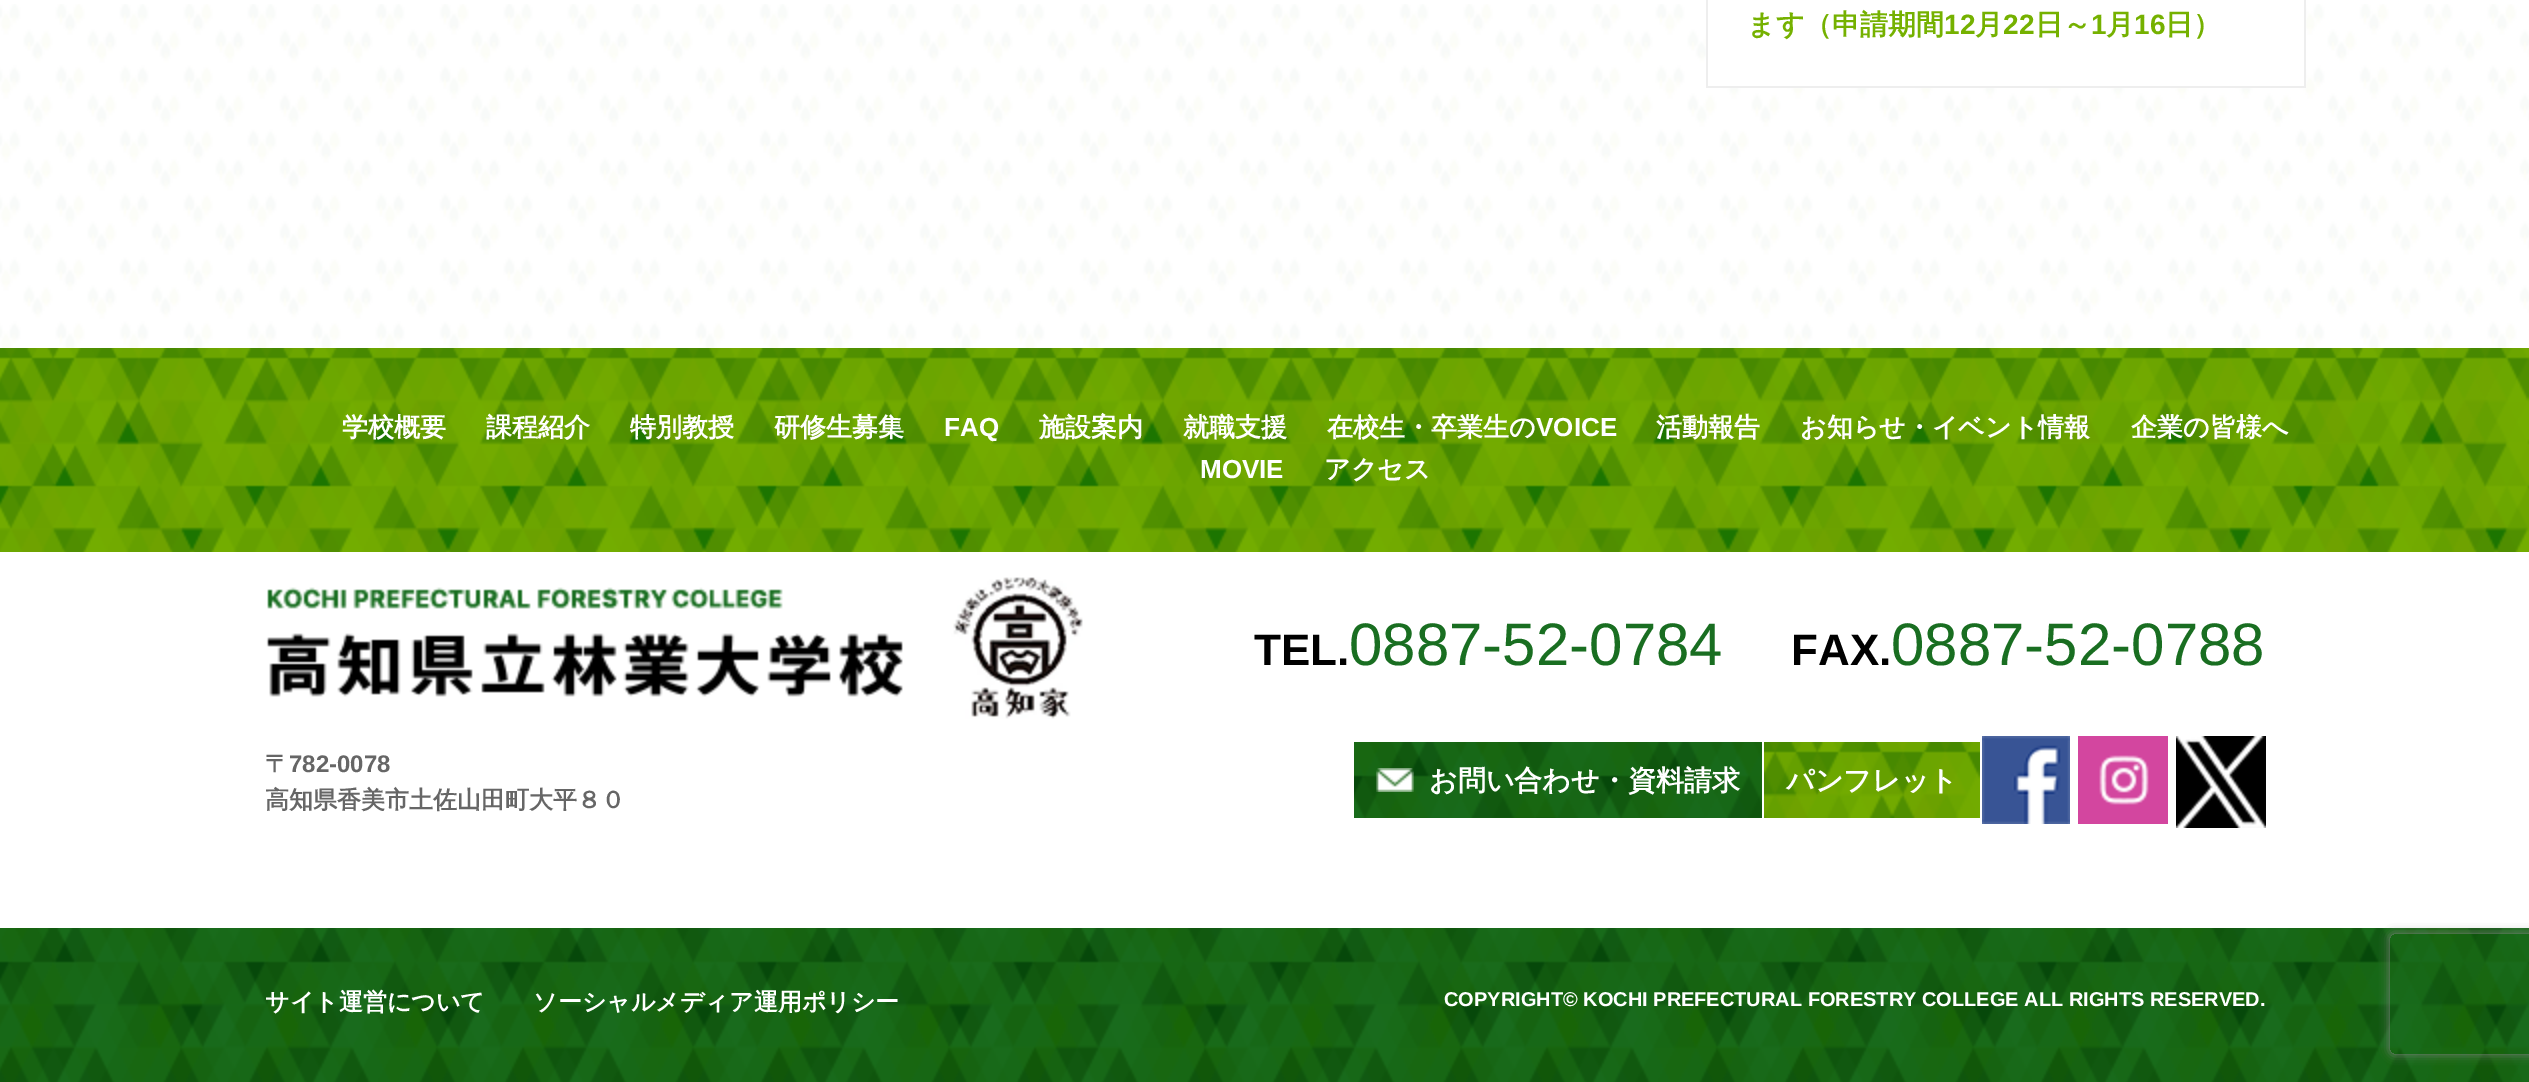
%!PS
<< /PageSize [2529 1082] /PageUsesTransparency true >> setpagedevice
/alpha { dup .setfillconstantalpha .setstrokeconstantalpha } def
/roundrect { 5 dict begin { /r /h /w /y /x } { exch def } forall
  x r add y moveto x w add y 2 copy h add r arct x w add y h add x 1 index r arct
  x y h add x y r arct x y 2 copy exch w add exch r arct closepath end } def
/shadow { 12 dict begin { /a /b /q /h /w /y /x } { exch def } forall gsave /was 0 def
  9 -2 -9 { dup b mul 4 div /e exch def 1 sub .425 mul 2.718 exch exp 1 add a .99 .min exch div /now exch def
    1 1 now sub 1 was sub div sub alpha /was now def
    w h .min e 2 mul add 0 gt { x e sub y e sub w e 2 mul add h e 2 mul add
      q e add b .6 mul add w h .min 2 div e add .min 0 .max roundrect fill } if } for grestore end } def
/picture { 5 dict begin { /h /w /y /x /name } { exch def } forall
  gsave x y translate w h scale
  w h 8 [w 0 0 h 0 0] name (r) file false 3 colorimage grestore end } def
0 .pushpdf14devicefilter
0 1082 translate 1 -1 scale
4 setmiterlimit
1 setgray
0 0 2529 1082 rectfill
(img1.rgb) 0 4 2529 344 picture
1708 4 596 82 rectfill
0.933 setgray
2304 0 2 88 rectfill
1706 86 600 2 rectfill
1706 0 2 88 rectfill
/WenQuanYiZenHei-Bold [28 0 0 -28 0 0] selectfont
0.459 0.694 0 setrgbcolor
1747 34 moveto (ます（申請期間) show
/LiberationSans-Bold [28 0 0 -28 0 0] selectfont
1944 34 moveto (12) show
/WenQuanYiZenHei-Bold [28 0 0 -28 0 0] selectfont
1975 34 moveto (月) show
/LiberationSans-Bold [28 0 0 -28 0 0] selectfont
2003 34 moveto (22) show
/WenQuanYiZenHei-Bold [28 0 0 -28 0 0] selectfont
2035 34 moveto (日～) show
/LiberationSans-Bold [28 0 0 -28 0 0] selectfont
2091 34 moveto (1) show
/WenQuanYiZenHei-Bold [28 0 0 -28 0 0] selectfont
2106 34 moveto (月) show
/LiberationSans-Bold [28 0 0 -28 0 0] selectfont
2134 34 moveto (16) show
/WenQuanYiZenHei-Bold [28 0 0 -28 0 0] selectfont
2165 34 moveto (日）) show
(img2.rgb) 0 348 2529 204 picture
/WenQuanYiZenHei-Bold [26 0 0 -26 0 0] selectfont
1 setgray
342 436 moveto (学校概要) show
486 436 moveto (課程紹介) show
630 436 moveto (特別教授) show
774 436 moveto (研修生募集) show
/LiberationSans-Bold [26 0 0 -26 0 0] selectfont
944 436 moveto (FAQ) show
/WenQuanYiZenHei-Bold [26 0 0 -26 0 0] selectfont
1039 436 moveto (施設案内) show
1183 436 moveto (就職支援) show
1327 436 moveto (在校生・卒業生の) show
/LiberationSans-Bold [26 0 0 -26 0 0] selectfont
1536 436 moveto (VOICE) show
/WenQuanYiZenHei-Bold [26 0 0 -26 0 0] selectfont
1656 436 moveto (活動報告) show
1800 436 moveto (お知らせ・イベント情報) show
2131 436 moveto (企業の皆様へ) show
/LiberationSans-Bold [26 0 0 -26 0 0] selectfont
1200 478 moveto (MOVIE) show
/WenQuanYiZenHei-Bold [26 0 0 -26 0 0] selectfont
1324 478 moveto (アクセス) show
(img3.rgb) 266 577 817 142 picture
/LiberationSans-Bold [44 0 0 -44 0 0] selectfont
0 setgray
1254 665 moveto (TEL.) show
/LiberationSans-Regular [60 0 0 -60 0 0] selectfont
0.098 0.431 0.129 setrgbcolor
1349 665 moveto (0887-52-0784) show
/LiberationSans-Bold [44 0 0 -44 0 0] selectfont
0 setgray
1791 665 moveto (FAX.) show
/LiberationSans-Regular [60 0 0 -60 0 0] selectfont
0.098 0.431 0.129 setrgbcolor
1891 665 moveto (0887-52-0788) show
/WenQuanYiZenHei-Bold [24 0 0 -24 0 0] selectfont
0.4 setgray
265 772 moveto (〒) show
/LiberationSans-Bold [24 0 0 -24 0 0] selectfont
289 772 moveto (782-0078) show
/WenQuanYiZenHei-Bold [24 0 0 -24 0 0] selectfont
265 808 moveto (高知県香美市土佐山田町大平８０) show
(img4.rgb) 1354 742 408 76 picture
(img5.rgb) 1376 768 38 24 picture
/WenQuanYiZenHei-Bold [28 0 0 -28 0 0] selectfont
1 setgray
1429 790 moveto (お問い合わせ・資料請求) show
(img6.rgb) 1764 742 216 76 picture
1786 790 moveto (パンフレット) show
(img7.rgb) 1982 736 88 88 picture
(img8.rgb) 2078 736 90 88 picture
(img9.rgb) 2176 736 90 92 picture
(img10.rgb) 0 928 2529 154 picture
/WenQuanYiZenHei-Bold [24 0 0 -24 0 0] selectfont
265 1010 moveto (サイト運営について) show
533 1010 moveto (ソーシャルメディア運用ポリシー) show
/LiberationSans-Bold [20 0 0 -20 0 0] selectfont
1444 1006 moveto (COPYRIGHT© KOCHI PREFECTURAL FORESTRY COLLEGE ALL RIGHTS RESERVED.) show
gsave
newpath 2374 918 moveto 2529 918 lineto 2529 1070 lineto 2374 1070 lineto closepath 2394 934 moveto 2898 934 lineto 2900 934 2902 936 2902 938 curveto 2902 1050 lineto 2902 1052 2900 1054 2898 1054 curveto 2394 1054 lineto 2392 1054 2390 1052 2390 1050 curveto 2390 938 lineto 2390 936 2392 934 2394 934 curveto closepath eoclip newpath
0.502 setgray
2390 934 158 120 4 5 1 shadow
grestore
.poppdf14devicefilter showpage
